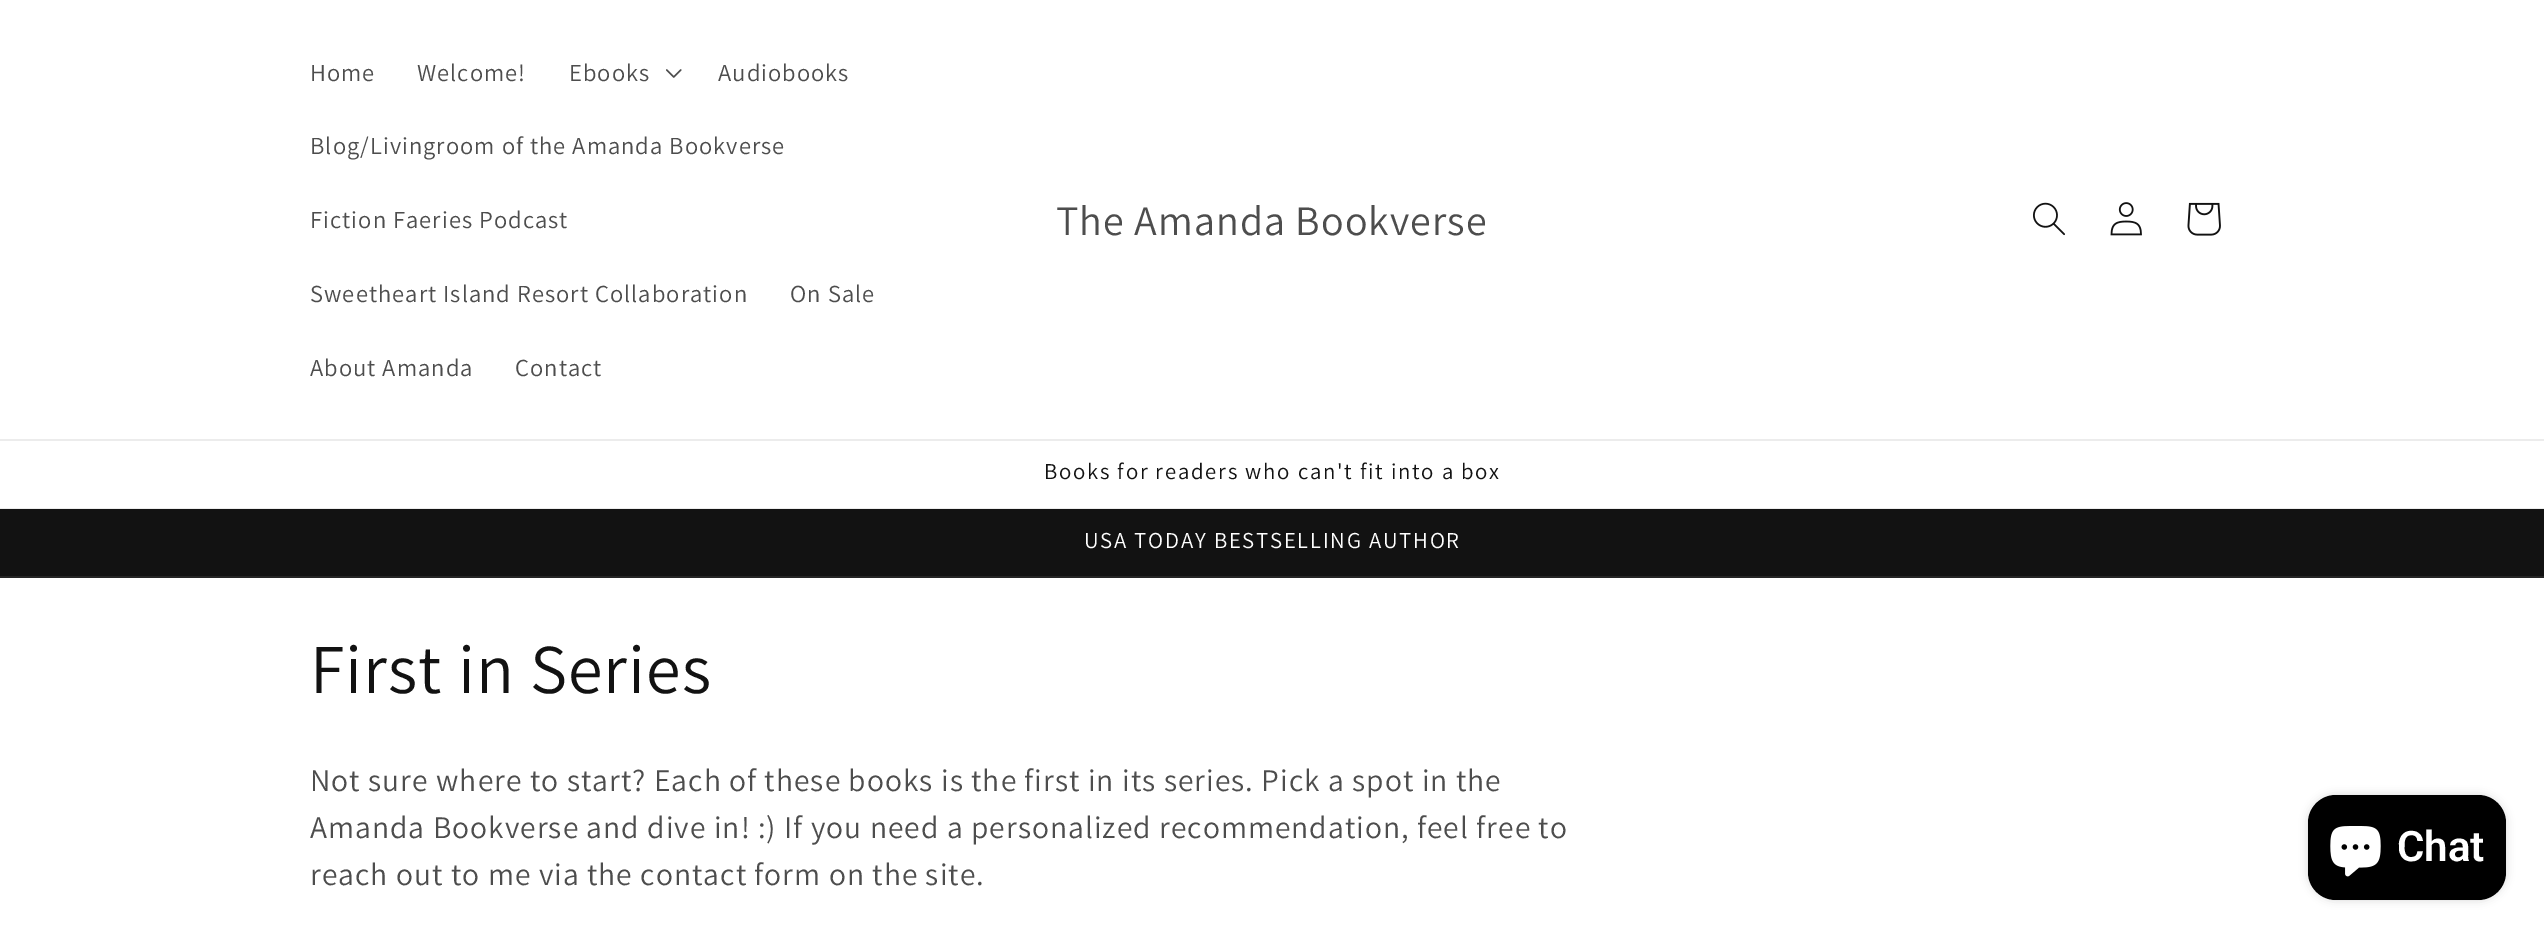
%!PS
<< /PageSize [2544 936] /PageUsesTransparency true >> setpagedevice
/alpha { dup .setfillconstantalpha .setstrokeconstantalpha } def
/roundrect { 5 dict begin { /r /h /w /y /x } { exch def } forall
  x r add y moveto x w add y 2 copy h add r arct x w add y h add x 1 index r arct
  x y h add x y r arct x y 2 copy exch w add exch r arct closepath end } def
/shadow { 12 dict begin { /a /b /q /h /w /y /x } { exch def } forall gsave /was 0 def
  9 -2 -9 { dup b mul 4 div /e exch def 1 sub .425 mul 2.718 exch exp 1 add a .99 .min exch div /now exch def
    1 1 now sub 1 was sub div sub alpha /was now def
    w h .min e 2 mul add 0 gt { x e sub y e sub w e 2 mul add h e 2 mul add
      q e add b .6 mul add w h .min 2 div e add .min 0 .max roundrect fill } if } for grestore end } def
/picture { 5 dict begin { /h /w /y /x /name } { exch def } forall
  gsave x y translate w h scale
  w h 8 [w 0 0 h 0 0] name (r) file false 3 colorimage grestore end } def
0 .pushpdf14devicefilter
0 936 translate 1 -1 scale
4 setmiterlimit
1 setgray
0 0 2544 936 rectfill
0.925 setgray
0 439 2544 2 rectfill
/Assistant-Regular [24.5 0 0 -24.5 0 0] selectfont
0.302 setgray
310 81 moveto 1.05 0 (Home) ashow
417 81 moveto 1.05 0 (Welcome!) ashow
569 81 moveto 1.05 0 (Ebooks) ashow
(img1.rgb) 666 69 16 9 picture
718 81 moveto 1.05 0 (Audiobooks) ashow
310 154 moveto 1.05 0 (Blog/Livingroom of the Amanda Bookverse) ashow
310 228 moveto 1.05 0 (Fiction Faeries Podcast) ashow
310 302 moveto 1.05 0 (Sweetheart Island Resort Collaboration) ashow
790 302 moveto 1.05 0 (On Sale) ashow
310 376 moveto 1.05 0 (About Amanda) ashow
515 376 moveto 1.05 0 (Contact) ashow
/Assistant-Regular [42 0 0 -42 0 0] selectfont
1056 235 moveto 1.05 0 (The Amanda Bookverse) ashow
(img2.rgb) 2033 202 32 34 picture
(img3.rgb) 2110 202 32 34 picture
(img4.rgb) 2187 202 34 34 picture
0.925 setgray
0 508 2544 1 rectfill
/Assistant-Regular [22.75 0 0 -22.75 0 0] selectfont
0.071 setgray
1044 479 moveto 1.75 0 (Books for readers who can't fit into a box) ashow
0 509 2544 67 rectfill
0.145 setgray
0 576 2544 2 rectfill
1 setgray
1084 548 moveto 1.75 0 (USA TODAY BESTSELLING AUTHOR) ashow
/Assistant-Regular [70 0 0 -70 0 0] selectfont
0.071 setgray
310 693 moveto 1.05 0 (First in Series) ashow
/Assistant-Regular [31.5 0 0 -31.5 0 0] selectfont
0.302 setgray
310 791 moveto 1.05 0 (Not sure where to start? Each of these books is the first in its series. Pick a spot in the) ashow
310 838 moveto 1.05 0 (Amanda Bookverse and dive in! :\) If you need a personalized recommendation, feel free to) ashow
310 885 moveto 1.05 0 (reach out to me via the contact form on the site.) ashow
0 setgray
2308 795 198 105 28 4.5 0.15 shadow
2308 795 198 105 28 roundrect fill
(img5.rgb) 2330 826 51 51 picture
/Roboto-SemiBold [42 0 0 -42 0 0] selectfont
1 setgray
2397 861 moveto (Chat) show
.poppdf14devicefilter showpage
